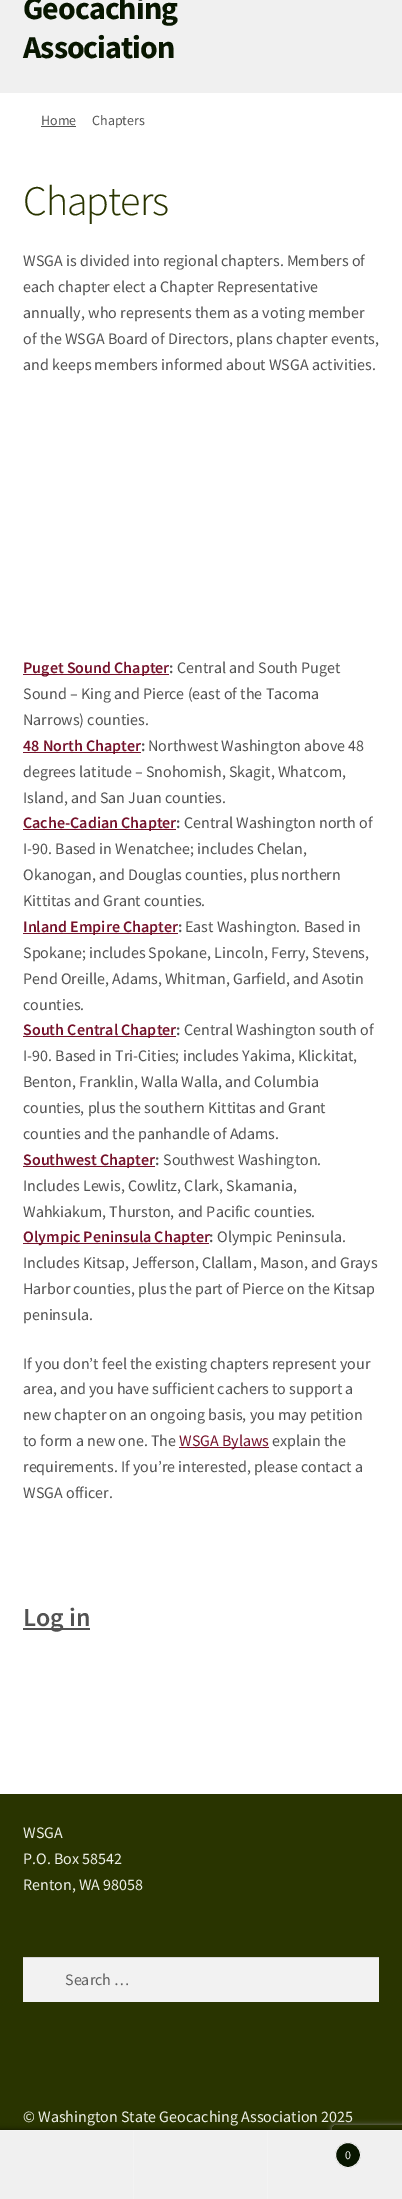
%!PS
<< /PageSize [402 2199] /PageUsesTransparency true >> setpagedevice
/alpha { dup .setfillconstantalpha .setstrokeconstantalpha } def
/roundrect { 5 dict begin { /r /h /w /y /x } { exch def } forall
  x r add y moveto x w add y 2 copy h add r arct x w add y h add x 1 index r arct
  x y h add x y r arct x y 2 copy exch w add exch r arct closepath end } def
/shadow { 12 dict begin { /a /b /q /h /w /y /x } { exch def } forall gsave /was 0 def
  9 -2 -9 { dup b mul 4 div /e exch def 1 sub .425 mul 2.718 exch exp 1 add a .99 .min exch div /now exch def
    1 1 now sub 1 was sub div sub alpha /was now def
    w h .min e 2 mul add 0 gt { x e sub y e sub w e 2 mul add h e 2 mul add
      q e add b .6 mul add w h .min 2 div e add .min 0 .max roundrect fill } if } for grestore end } def
0 .pushpdf14devicefilter
0 2199 translate 1 -1 scale
4 setmiterlimit
1 setgray
0 0 402 2199 rectfill
0.941 setgray
0 0 402 93 rectfill
/SourceSansPro-Bold [32 0 0 -32 0 0] selectfont
0.031 0.086 0 setrgbcolor
23 19 moveto -1 0 (Geocaching) ashow
23 58 moveto -1 0 (Association) ashow
/SourceSansPro-Regular [14 0 0 -14 0 0] selectfont
0.322 setgray
41 125 moveto (Home) show
41 126 35 1 rectfill
92 125 moveto (Chapters) show
/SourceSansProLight-Light [42 0 0 -42 0 0] selectfont
0.161 0.204 0 setrgbcolor
23 215 moveto -1 0 (Chapters) ashow
/SourceSansPro-Regular [16 0 0 -16 0 0] selectfont
0.322 setgray
23 266 moveto (WSGA is divided into regional chapters. Members of) show
23 292 moveto (each chapter elect a Chapter Representative) show
23 318 moveto (annually, who represents them as a voting member) show
23 344 moveto (of the WSGA Board of Directors, plans chapter events,) show
23 370 moveto (and keeps members informed about WSGA activities.) show
0.459 0.071 0.169 setrgbcolor
23 674 146 1 rectfill
/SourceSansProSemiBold-SemiBold [16 0 0 -16 0 0] selectfont
23 673 moveto (Puget Sound Chapter) show
0.322 setgray
169 673 moveto (:) show
/SourceSansPro-Regular [16 0 0 -16 0 0] selectfont
177 673 moveto (Central and South Puget) show
23 699 moveto (Sound – King and Pierce \(east of the Tacoma) show
23 725 moveto (Narrows\) counties.) show
0.459 0.071 0.169 setrgbcolor
23 752 118 1 rectfill
/SourceSansProSemiBold-SemiBold [16 0 0 -16 0 0] selectfont
23 751 moveto (48 North Chapter) show
0.322 setgray
141 751 moveto (:) show
/SourceSansPro-Regular [16 0 0 -16 0 0] selectfont
148 751 moveto (Northwest Washington above 48) show
23 777 moveto (degrees latitude – Snohomish, Skagit, Whatcom,) show
23 803 moveto (Island, and San Juan counties.) show
0.459 0.071 0.169 setrgbcolor
23 829 153 1 rectfill
/SourceSansProSemiBold-SemiBold [16 0 0 -16 0 0] selectfont
23 828 moveto (Cache-Cadian Chapter) show
0.322 setgray
176 828 moveto (:) show
/SourceSansPro-Regular [16 0 0 -16 0 0] selectfont
184 828 moveto (Central Washington north of) show
23 854 moveto (I-90. Based in Wenatchee; includes Chelan,) show
23 880 moveto (Okanogan, and Douglas counties, plus northern) show
23 906 moveto (Kittitas and Grant counties.) show
0.459 0.071 0.169 setrgbcolor
23 933 155 1 rectfill
/SourceSansProSemiBold-SemiBold [16 0 0 -16 0 0] selectfont
23 932 moveto (Inland Empire Chapter) show
0.322 setgray
178 932 moveto (:) show
/SourceSansPro-Regular [16 0 0 -16 0 0] selectfont
185 932 moveto (East Washington. Based in) show
23 958 moveto (Spokane; includes Spokane, Lincoln, Ferry, Stevens,) show
23 984 moveto (Pend Oreille, Adams, Whitman, Garfield, and Asotin) show
23 1010 moveto (counties.) show
0.459 0.071 0.169 setrgbcolor
23 1036 153 1 rectfill
/SourceSansProSemiBold-SemiBold [16 0 0 -16 0 0] selectfont
23 1035 moveto (South Central Chapter) show
0.322 setgray
176 1035 moveto (:) show
/SourceSansPro-Regular [16 0 0 -16 0 0] selectfont
184 1035 moveto (Central Washington south of) show
23 1061 moveto (I-90. Based in Tri-Cities; includes Yakima, Klickitat,) show
23 1087 moveto (Benton, Franklin, Walla Walla, and Columbia) show
23 1113 moveto (counties, plus the southern Kittitas and Grant) show
23 1139 moveto (counties and the panhandle of Adams.) show
0.459 0.071 0.169 setrgbcolor
23 1166 132 1 rectfill
/SourceSansProSemiBold-SemiBold [16 0 0 -16 0 0] selectfont
23 1165 moveto (Southwest Chapter) show
0.322 setgray
155 1165 moveto (:) show
/SourceSansPro-Regular [16 0 0 -16 0 0] selectfont
163 1165 moveto (Southwest Washington.) show
23 1191 moveto (Includes Lewis, Cowlitz, Clark, Skamania,) show
23 1217 moveto (Wahkiakum, Thurston, and Pacific counties.) show
0.459 0.071 0.169 setrgbcolor
23 1243 186 1 rectfill
/SourceSansProSemiBold-SemiBold [16 0 0 -16 0 0] selectfont
23 1242 moveto (Olympic Peninsula Chapter) show
0.322 setgray
209 1242 moveto (:) show
/SourceSansPro-Regular [16 0 0 -16 0 0] selectfont
217 1242 moveto (Olympic Peninsula.) show
23 1268 moveto (Includes Kitsap, Jefferson, Clallam, Mason, and Grays) show
23 1294 moveto (Harbor counties, plus the part of Pierce on the Kitsap) show
23 1320 moveto (peninsula.) show
23 1369 moveto (If you don’t feel the existing chapters represent your) show
23 1394 moveto (area, and you have sufficient cachers to support a) show
23 1420 moveto (new chapter on an ongoing basis, you may petition) show
23 1446 moveto (to form a new one. The) show
0.459 0.071 0.169 setrgbcolor
179 1447 90 1 rectfill
179 1446 moveto (WSGA Bylaws) show
0.322 setgray
272 1446 moveto (explain the) show
23 1472 moveto (requirements. If you’re interested, please contact a) show
23 1498 moveto (WSGA officer.) show
23 1628 67 2 rectfill
/SourceSansProSemiBold-SemiBold [26 0 0 -26 0 0] selectfont
23 1626 moveto (Log in) show
0.161 0.204 0 setrgbcolor
0 1794 402 336 rectfill
/SourceSansPro-Regular [16 0 0 -16 0 0] selectfont
0.929 0.937 0.902 setrgbcolor
23 1838 moveto (WSGA) show
23 1864 moveto (P.O. Box 58542) show
23 1890 moveto (Renton, WA 98058) show
0.949 setgray
23 1958 356 44 rectfill
0.831 setgray
23 1957 356 1 rectfill
0.38 setgray
65 1985 moveto (Search …) show
0.929 0.937 0.902 setrgbcolor
23 2122 moveto (© Washington State Geocaching Association 2025) show
0 setgray
0 2130 402 69 0 3 0.7 shadow
gsave
newpath 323 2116 moveto 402 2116 lineto 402 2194 lineto 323 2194 lineto closepath 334 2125 moveto 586 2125 lineto 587 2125 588 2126 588 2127 curveto 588 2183 lineto 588 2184 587 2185 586 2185 curveto 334 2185 lineto 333 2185 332 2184 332 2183 curveto 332 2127 lineto 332 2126 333 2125 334 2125 curveto closepath eoclip newpath
0.502 setgray
332 2125 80 60 2 2.5 1 shadow
grestore
0.953 setgray
0 2130 402 1 rectfill
0.941 setgray
0 2131 133 68 rectfill
0.953 setgray
133 2131 1 68 rectfill
0.941 setgray
134 2131 133 68 rectfill
0.953 setgray
267 2131 1 68 rectfill
0.941 setgray
268 2131 134 68 rectfill
0.031 0.086 0 setrgbcolor
newpath 348 2155 12.5 0 360 arc closepath gsave fill grestore
0.941 setgray
stroke
/SourceSansPro-Regular [12 0 0 -12 0 0] selectfont
345 2159 moveto (0) show
.poppdf14devicefilter showpage
